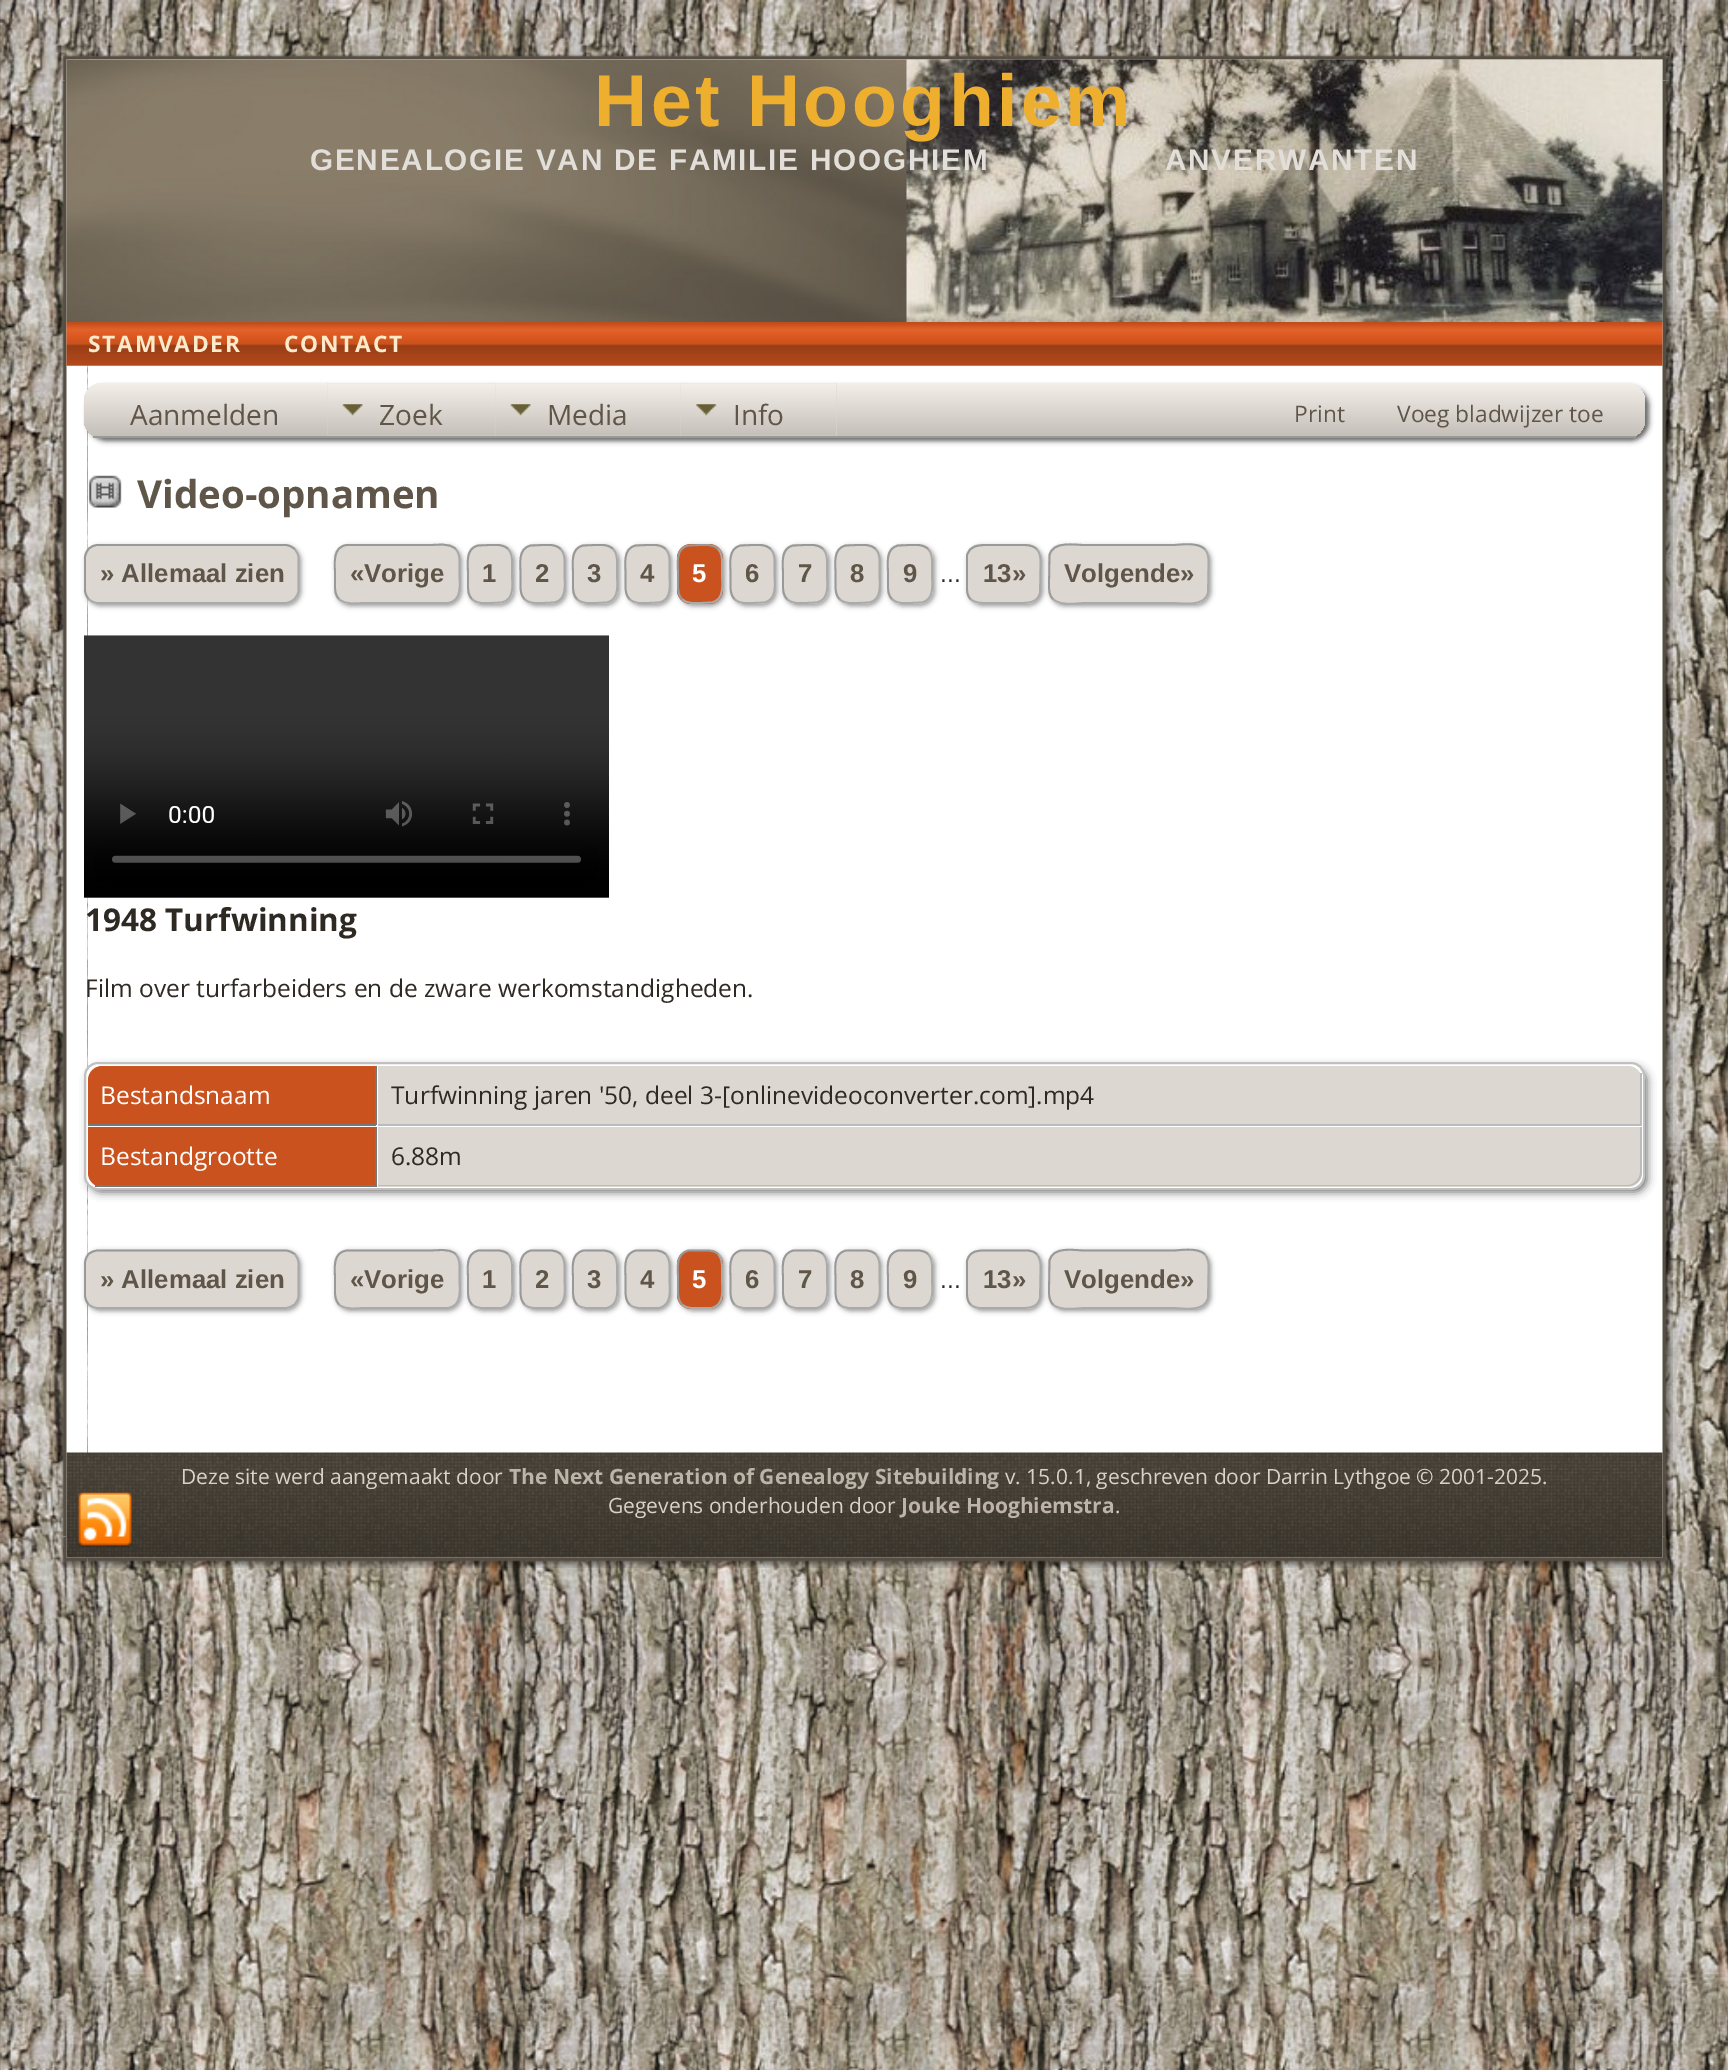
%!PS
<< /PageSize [1728 2070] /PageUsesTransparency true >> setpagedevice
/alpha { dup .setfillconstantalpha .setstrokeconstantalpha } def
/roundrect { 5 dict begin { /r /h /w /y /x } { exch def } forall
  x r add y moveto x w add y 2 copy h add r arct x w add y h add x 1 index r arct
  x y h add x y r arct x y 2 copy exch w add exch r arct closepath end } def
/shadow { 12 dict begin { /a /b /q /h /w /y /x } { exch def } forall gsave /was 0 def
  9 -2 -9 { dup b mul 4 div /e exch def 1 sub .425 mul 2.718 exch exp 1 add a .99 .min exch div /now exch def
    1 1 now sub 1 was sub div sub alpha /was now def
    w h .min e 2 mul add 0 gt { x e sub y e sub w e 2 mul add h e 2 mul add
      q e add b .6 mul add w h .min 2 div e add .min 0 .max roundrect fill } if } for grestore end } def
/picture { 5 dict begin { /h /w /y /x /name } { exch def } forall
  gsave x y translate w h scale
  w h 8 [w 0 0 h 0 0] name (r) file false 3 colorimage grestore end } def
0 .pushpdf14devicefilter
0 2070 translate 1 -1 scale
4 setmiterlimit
1 setgray
0 0 1728 2070 rectfill
(img1.rgb) 0 0 1728 2070 picture
(img2.rgb) 61 54 27 27 picture
(img4.rgb) 1641 54 32 27 picture
(img3.rgb) 87 54 1555 6 picture
(img18.rgb) 61 1536 27 32 picture
(img5.rgb) 61 80 27 1457 picture
(img20.rgb) 1641 1536 32 32 picture
(img17.rgb) 1642 80 31 1457 picture
(img6.rgb) 66 59 1597 263 picture
(img7.rgb) 906 59 757 263 picture
/LiberationSans-Bold [73.5 0 0 -73.5 0 0] selectfont
0.937 0.686 0.18 setrgbcolor
594 126 moveto 3.5 0 (Het Hooghiem) ashow
/LiberationSans-Bold [29.75 0 0 -29.75 0 0] selectfont
0.886 0.875 0.855 setrgbcolor
310 170 moveto 1.75 0 (GENEALOGIE VAN DE FAMILIE HOOGHIEM) ashow
1165 170 moveto 1.75 0 (ANVERWANTEN) ashow
1 setgray
88 365 1554 1088 rectfill
(img8.rgb) 66 322 1597 44 picture
/OpenSans-Bold [22.75 0 0 -22.75 0 0] selectfont
0.984 0.922 0.796 setrgbcolor
88 352 moveto 1.75 0 (STAMVADER) ashow
284 352 moveto 1.75 0 (CONTACT) ashow
0.4 setgray
88 387 1561 54 18 2.5 1 shadow
0.863 0.843 0.82 setrgbcolor
84 383 1561 55 18 roundrect fill
gsave
84 383 1561 55 18 roundrect clip newpath
gsave newpath 102 383 moveto 1627 383 lineto 1637 383 1645 391 1645 401 curveto 1645 436 lineto 84 436 lineto 84 401 lineto 84 391 92 383 102 383 curveto closepath clip newpath
<< /ShadingType 2 /ColorSpace /DeviceRGB /Coords [865 383 865 436] /Extend [true true] /Function << /FunctionType 2 /Domain [0 1] /C0 [0.961 0.937 0.914] /C1 [0.773 0.749 0.725] /N 1 >> >> shfill grestore
grestore
0.6 setgray
93 436 1543 2 rectfill
/OpenSans-Regular [28 0 0 -28 0 0] selectfont
0.373 0.337 0.286 setrgbcolor
130 425 moveto (Aanmelden) show
0.863 0.843 0.82 setrgbcolor
327 383 510 53 rectfill
(img9.rgb) 327 383 168 53 picture
0.373 0.337 0.286 setrgbcolor
379 425 moveto (Zoek) show
(img10.rgb) 495 383 186 53 picture
547 425 moveto (Media) show
(img11.rgb) 681 383 156 53 picture
733 425 moveto (Info) show
/OpenSans-Regular [22.75 0 0 -22.75 0 0] selectfont
1294 422 moveto (Print) show
1397 422 moveto (Voeg bladwijzer toe) show
(img12.rgb) 88 475 34 33 picture
/OpenSans-Bold [38.5 0 0 -38.5 0 0] selectfont
137 508 moveto (Video-opnamen) show
0.6 setgray
86 546 215 60 14 2.5 1 shadow
0.863 0.843 0.82 setrgbcolor
84 544 215 60 14 roundrect fill
0.667 setgray
1.8 setlinewidth
newpath 294.5 549 moveto 297 551.5 298.5 555 298.5 558 curveto 298.5 590 lineto 298.5 593 297 596.5 294.5 599 curveto 292 601.5 288.5 603 285 603 curveto 98 603 lineto 94.5 603 91 601.5 88.5 599 curveto stroke
0.6 setgray
newpath 88.5 599 moveto 86.5 596.5 85 593 85 590 curveto 85 558 lineto 85 555 86.5 551.5 88.5 549 curveto 91 546.5 94.5 545 98 545 curveto 285 545 lineto 288.5 545 292 546.5 294.5 549 curveto stroke
/LiberationSans-Bold [25.75 0 0 -25.75 0 0] selectfont
0.373 0.337 0.286 setrgbcolor
100 582 moveto (» Allemaal zien) show
0.6 setgray
336 546 126 60 14 2.5 1 shadow
0.863 0.843 0.82 setrgbcolor
334 544 126 60 14 roundrect fill
0.667 setgray
newpath 455.5 549 moveto 459.5 553 459.5 558 459.5 563.5 curveto 459.5 574 lineto 459.5 584 462.5 601.5 447.5 603 curveto 364.5 603 lineto 357.5 603 345.5 605.5 339 599 curveto stroke
0.6 setgray
newpath 339 599 moveto 335 595 335 590 335 584.5 curveto 335 574 lineto 335 564 332 546.5 347 545 curveto 430 545 lineto 437 545 449 542.5 455.5 549 curveto stroke
0.373 0.337 0.286 setrgbcolor
350 582 moveto («Vorige) show
0.6 setgray
469 546 46 60 14 2.5 1 shadow
0.863 0.843 0.82 setrgbcolor
467 544 46 60 14 roundrect fill
0.667 setgray
newpath 508 549 moveto 512 553 512 558 512 563.5 curveto 512 574 lineto 512 584 515 600 501.5 602.5 curveto 490 603 lineto 483.5 603 477 604 472 599 curveto stroke
0.6 setgray
newpath 472 599 moveto 468 595 468 590 468 584.5 curveto 468 574 lineto 468 564 465 548 478.5 545.5 curveto 490 545 lineto 496.5 545 503 544 508 549 curveto stroke
0.373 0.337 0.286 setrgbcolor
482 582 moveto (1) show
0.6 setgray
522 546 45 60 14 2.5 1 shadow
0.863 0.843 0.82 setrgbcolor
520 544 45 60 14 roundrect fill
0.667 setgray
newpath 560.5 549 moveto 564.5 553 564.5 558 564.5 563.5 curveto 564.5 574 lineto 564.5 584 567.5 600 554 602.5 curveto 542.5 603 lineto 536 603 529.5 604 524.5 599 curveto stroke
0.6 setgray
newpath 524.5 599 moveto 520.5 595 520.5 590 520.5 584.5 curveto 520.5 574 lineto 520.5 564 517.5 548 531 545.5 curveto 542.5 545 lineto 549 545 555.5 544 560.5 549 curveto stroke
0.373 0.337 0.286 setrgbcolor
535 582 moveto (2) show
0.6 setgray
574 546 46 60 14 2.5 1 shadow
0.863 0.843 0.82 setrgbcolor
572 544 46 60 14 roundrect fill
0.667 setgray
newpath 613 549 moveto 617 553 617 558 617 563.5 curveto 617 574 lineto 617 584 620 600 606.5 602.5 curveto 595 603 lineto 588.5 603 582 604 577 599 curveto stroke
0.6 setgray
newpath 577 599 moveto 573 595 573 590 573 584.5 curveto 573 574 lineto 573 564 570 548 583.5 545.5 curveto 595 545 lineto 601.5 545 608 544 613 549 curveto stroke
0.373 0.337 0.286 setrgbcolor
587 582 moveto (3) show
0.6 setgray
627 546 45 60 14 2.5 1 shadow
0.863 0.843 0.82 setrgbcolor
625 544 45 60 14 roundrect fill
0.667 setgray
newpath 665.5 549 moveto 669.5 553 669.5 558 669.5 563.5 curveto 669.5 574 lineto 669.5 584 672.5 600 659 602.5 curveto 647.5 603 lineto 641 603 634.5 604 629.5 599 curveto stroke
0.6 setgray
newpath 629.5 599 moveto 625.5 595 625.5 590 625.5 584.5 curveto 625.5 574 lineto 625.5 564 622.5 548 636 545.5 curveto 647.5 545 lineto 654 545 660.5 544 665.5 549 curveto stroke
0.373 0.337 0.286 setrgbcolor
640 582 moveto (4) show
0.6 setgray
679 546 46 60 14 2.5 1 shadow
0.792 0.322 0.118 setrgbcolor
677 544 46 60 14 roundrect fill
0.667 setgray
newpath 718 549 moveto 722 553 722 558 722 563.5 curveto 722 574 lineto 722 584 725 600 711.5 602.5 curveto 700 603 lineto 693.5 603 687 604 682 599 curveto stroke
0.6 setgray
newpath 682 599 moveto 678 595 678 590 678 584.5 curveto 678 574 lineto 678 564 675 548 688.5 545.5 curveto 700 545 lineto 706.5 545 713 544 718 549 curveto stroke
1 setgray
692 582 moveto (5) show
0.6 setgray
732 546 45 60 14 2.5 1 shadow
0.863 0.843 0.82 setrgbcolor
730 544 45 60 14 roundrect fill
0.667 setgray
newpath 770.5 549 moveto 774.5 553 774.5 558 774.5 563.5 curveto 774.5 574 lineto 774.5 584 777.5 600 764 602.5 curveto 752.5 603 lineto 746 603 739.5 604 734.5 599 curveto stroke
0.6 setgray
newpath 734.5 599 moveto 730.5 595 730.5 590 730.5 584.5 curveto 730.5 574 lineto 730.5 564 727.5 548 741 545.5 curveto 752.5 545 lineto 759 545 765.5 544 770.5 549 curveto stroke
0.373 0.337 0.286 setrgbcolor
745 582 moveto (6) show
0.6 setgray
784 546 46 60 14 2.5 1 shadow
0.863 0.843 0.82 setrgbcolor
782 544 46 60 14 roundrect fill
0.667 setgray
newpath 823 549 moveto 827 553 827 558 827 563.5 curveto 827 574 lineto 827 584 830 600 816.5 602.5 curveto 805 603 lineto 798.5 603 792 604 787 599 curveto stroke
0.6 setgray
newpath 787 599 moveto 783 595 783 590 783 584.5 curveto 783 574 lineto 783 564 780 548 793.5 545.5 curveto 805 545 lineto 811.5 545 818 544 823 549 curveto stroke
0.373 0.337 0.286 setrgbcolor
798 582 moveto (7) show
0.6 setgray
837 546 45 60 14 2.5 1 shadow
0.863 0.843 0.82 setrgbcolor
835 544 45 60 14 roundrect fill
0.667 setgray
newpath 875.5 549 moveto 879.5 553 879.5 558 879.5 563.5 curveto 879.5 574 lineto 879.5 584 882.5 600 869 602.5 curveto 857.5 603 lineto 851 603 844.5 604 839.5 599 curveto stroke
0.6 setgray
newpath 839.5 599 moveto 835.5 595 835.5 590 835.5 584.5 curveto 835.5 574 lineto 835.5 564 832.5 548 846 545.5 curveto 857.5 545 lineto 864 545 870.5 544 875.5 549 curveto stroke
0.373 0.337 0.286 setrgbcolor
850 582 moveto (8) show
0.6 setgray
889 546 46 60 14 2.5 1 shadow
0.863 0.843 0.82 setrgbcolor
887 544 46 60 14 roundrect fill
0.667 setgray
newpath 928 549 moveto 932 553 932 558 932 563.5 curveto 932 574 lineto 932 584 935 600 921.5 602.5 curveto 910 603 lineto 903.5 603 897 604 892 599 curveto stroke
0.6 setgray
newpath 892 599 moveto 888 595 888 590 888 584.5 curveto 888 574 lineto 888 564 885 548 898.5 545.5 curveto 910 545 lineto 916.5 545 923 544 928 549 curveto stroke
0.373 0.337 0.286 setrgbcolor
903 582 moveto (9) show
/LiberationSans-Regular [24.5 0 0 -24.5 0 0] selectfont
0.18 0.165 0.137 setrgbcolor
940 582 moveto (...) show
0.6 setgray
968 546 75 60 14 2.5 1 shadow
0.863 0.843 0.82 setrgbcolor
966 544 75 60 14 roundrect fill
0.667 setgray
newpath 1036.5 549 moveto 1040.5 553 1040.5 558 1040.5 563.5 curveto 1040 592.5 lineto 1038 603 1028 603 1019.5 603 curveto 988 603 lineto 981.5 603 975.5 603.5 970.5 599 curveto stroke
0.6 setgray
newpath 970.5 599 moveto 966.5 595 967 590 967 584.5 curveto 967 555.5 lineto 969.5 545 979 545 988 545 curveto 1019.5 545 lineto 1025.5 545 1032 544.5 1036.5 549 curveto stroke
/LiberationSans-Bold [25.75 0 0 -25.75 0 0] selectfont
0.373 0.337 0.286 setrgbcolor
983 582 moveto (13») show
0.6 setgray
1050 546 161 60 14 2.5 1 shadow
0.863 0.843 0.82 setrgbcolor
1048 544 161 60 14 roundrect fill
0.667 setgray
newpath 1204.5 549 moveto 1208.5 553 1208.5 558 1208.5 563.5 curveto 1208 592.5 lineto 1205 607.5 1182.5 603 1173 603 curveto 1084.5 603 lineto 1078 603 1060.5 606.5 1053 599 curveto stroke
0.6 setgray
newpath 1053 599 moveto 1049 595 1049 590 1049 584.5 curveto 1049.5 555.5 lineto 1052.5 540.5 1075 545 1084.5 545 curveto 1173 545 lineto 1179.5 545 1197 541.5 1204.5 549 curveto stroke
0.373 0.337 0.286 setrgbcolor
1064 582 moveto (Volgende») show
(img13.rgb) 84 635 525 263 picture
/OpenSans-Bold [31.5 0 0 -31.5 0 0] selectfont
0.18 0.165 0.137 setrgbcolor
85 931 moveto (1948 Turfwinning) show
/OpenSans-Regular [24.5 0 0 -24.5 0 0] selectfont
85 997 moveto (Film over turfarbeiders en de zware werkomstandigheden.) show
0.4 setgray
89 1068 1558 124 12 4.5 1 shadow
1 setgray
85 1063 1559 126 13 roundrect gsave fill grestore
0.753 setgray
2 setlinewidth
stroke
0.792 0.322 0.118 setrgbcolor
newpath 102 1066 moveto 376 1066 lineto 376 1125 lineto 88 1125 lineto 88 1080 lineto 88 1072.5 94.5 1066 102 1066 curveto closepath fill
0.467 setgray
375 1066 2 59 rectfill
88 1124 288 2 rectfill
1 setgray
100 1104 moveto (Bestandsnaam) show
0.863 0.843 0.82 setrgbcolor
newpath 378 1066 moveto 1628 1066 lineto 1635.5 1066 1642 1072.5 1642 1080 curveto 1642 1125 lineto 378 1125 lineto closepath fill
0.733 setgray
1640 1073 2 52 rectfill
378 1124 1264 2 rectfill
0.18 0.165 0.137 setrgbcolor
391 1104 moveto (Turfwinning jaren '50, deel 3-[onlinevideoconverter.com].mp4) show
0.792 0.322 0.118 setrgbcolor
newpath 88 1127 moveto 376 1127 lineto 376 1187 lineto 102 1187 lineto 94.5 1187 88 1180.5 88 1173 curveto closepath fill
0.467 setgray
375 1127 2 60 rectfill
95 1185 281 2 rectfill
1 setgray
100 1165 moveto (Bestandgrootte) show
0.863 0.843 0.82 setrgbcolor
newpath 378 1127 moveto 1642 1127 lineto 1642 1173 lineto 1642 1180.5 1635.5 1187 1628 1187 curveto 378 1187 lineto closepath fill
0.733 setgray
newpath 378 1127 moveto 1642 1127 lineto 1642 1172 lineto 1642 1180 1635 1186 1628 1186 curveto 378 1186 lineto closepath 378 1127 moveto 1640 1127 lineto 1640 1172 lineto 1640 1179 1634 1185 1628 1185 curveto 378 1185 lineto closepath eofill
0.18 0.165 0.137 setrgbcolor
391 1165 moveto (6.88m) show
0.6 setgray
86 1251 215 60 14 2.5 1 shadow
0.863 0.843 0.82 setrgbcolor
84 1250 215 59 14 roundrect fill
0.667 setgray
1.8 setlinewidth
newpath 294.5 1254 moveto 297 1256.5 298.5 1260 298.5 1263.5 curveto 298.5 1295 lineto 298.5 1298.5 297 1302 294.5 1304.5 curveto 292 1306.5 288.5 1308 285 1308 curveto 98 1308 lineto 94.5 1308 91 1306.5 88.5 1304.5 curveto stroke
0.6 setgray
newpath 88.5 1304.5 moveto 86.5 1302 85 1298.5 85 1295 curveto 85 1263.5 lineto 85 1260 86.5 1256.5 88.5 1254 curveto 91 1252 94.5 1250.5 98 1250.5 curveto 285 1250.5 lineto 288.5 1250.5 292 1252 294.5 1254 curveto stroke
/LiberationSans-Bold [25.75 0 0 -25.75 0 0] selectfont
0.373 0.337 0.286 setrgbcolor
100 1288 moveto (» Allemaal zien) show
0.6 setgray
336 1251 126 60 14 2.5 1 shadow
0.863 0.843 0.82 setrgbcolor
334 1250 126 59 14 roundrect fill
0.667 setgray
newpath 455.5 1254 moveto 459.5 1258.5 459.5 1263.5 459.5 1269 curveto 459.5 1279 lineto 459.5 1289.5 462.5 1306.5 447.5 1308 curveto 364.5 1308 lineto 357.5 1308 345.5 1310.5 339 1304.5 curveto stroke
0.6 setgray
newpath 339 1304.5 moveto 335 1300 335 1295 335 1290 curveto 335 1279 lineto 335 1269 332 1252 347 1250.5 curveto 430 1250.5 lineto 437 1250.5 449 1248 455.5 1254 curveto stroke
0.373 0.337 0.286 setrgbcolor
350 1288 moveto («Vorige) show
0.6 setgray
469 1251 46 60 14 2.5 1 shadow
0.863 0.843 0.82 setrgbcolor
467 1250 46 59 14 roundrect fill
0.667 setgray
newpath 508 1254 moveto 512 1258.5 512 1263.5 512 1269 curveto 512 1279 lineto 512 1289.5 515 1305 501.5 1308 curveto 490 1308 lineto 483.5 1308 477 1309 472 1304.5 curveto stroke
0.6 setgray
newpath 472 1304.5 moveto 468 1300 468 1295 468 1290 curveto 468 1279 lineto 468 1269 465 1253.5 478.5 1250.5 curveto 490 1250.5 lineto 496.5 1250.5 503 1249.5 508 1254 curveto stroke
0.373 0.337 0.286 setrgbcolor
482 1288 moveto (1) show
0.6 setgray
522 1251 45 60 14 2.5 1 shadow
0.863 0.843 0.82 setrgbcolor
520 1250 45 59 14 roundrect fill
0.667 setgray
newpath 560.5 1254 moveto 564.5 1258.5 564.5 1263.5 564.5 1269 curveto 564.5 1279 lineto 564.5 1289.5 567.5 1305 554 1308 curveto 542.5 1308 lineto 536 1308 529.5 1309 524.5 1304.5 curveto stroke
0.6 setgray
newpath 524.5 1304.5 moveto 520.5 1300 520.5 1295 520.5 1290 curveto 520.5 1279 lineto 520.5 1269 517.5 1253.5 531 1250.5 curveto 542.5 1250.5 lineto 549 1250.5 555.5 1249.5 560.5 1254 curveto stroke
0.373 0.337 0.286 setrgbcolor
535 1288 moveto (2) show
0.6 setgray
574 1251 46 60 14 2.5 1 shadow
0.863 0.843 0.82 setrgbcolor
572 1250 46 59 14 roundrect fill
0.667 setgray
newpath 613 1254 moveto 617 1258.5 617 1263.5 617 1269 curveto 617 1279 lineto 617 1289.5 620 1305 606.5 1308 curveto 595 1308 lineto 588.5 1308 582 1309 577 1304.5 curveto stroke
0.6 setgray
newpath 577 1304.5 moveto 573 1300 573 1295 573 1290 curveto 573 1279 lineto 573 1269 570 1253.5 583.5 1250.5 curveto 595 1250.5 lineto 601.5 1250.5 608 1249.5 613 1254 curveto stroke
0.373 0.337 0.286 setrgbcolor
587 1288 moveto (3) show
0.6 setgray
627 1251 45 60 14 2.5 1 shadow
0.863 0.843 0.82 setrgbcolor
625 1250 45 59 14 roundrect fill
0.667 setgray
newpath 665.5 1254 moveto 669.5 1258.5 669.5 1263.5 669.5 1269 curveto 669.5 1279 lineto 669.5 1289.5 672.5 1305 659 1308 curveto 647.5 1308 lineto 641 1308 634.5 1309 629.5 1304.5 curveto stroke
0.6 setgray
newpath 629.5 1304.5 moveto 625.5 1300 625.5 1295 625.5 1290 curveto 625.5 1279 lineto 625.5 1269 622.5 1253.5 636 1250.5 curveto 647.5 1250.5 lineto 654 1250.5 660.5 1249.5 665.5 1254 curveto stroke
0.373 0.337 0.286 setrgbcolor
640 1288 moveto (4) show
0.6 setgray
679 1251 46 60 14 2.5 1 shadow
0.792 0.322 0.118 setrgbcolor
677 1250 46 59 14 roundrect fill
0.667 setgray
newpath 718 1254 moveto 722 1258.5 722 1263.5 722 1269 curveto 722 1279 lineto 722 1289.5 725 1305 711.5 1308 curveto 700 1308 lineto 693.5 1308 687 1309 682 1304.5 curveto stroke
0.6 setgray
newpath 682 1304.5 moveto 678 1300 678 1295 678 1290 curveto 678 1279 lineto 678 1269 675 1253.5 688.5 1250.5 curveto 700 1250.5 lineto 706.5 1250.5 713 1249.5 718 1254 curveto stroke
1 setgray
692 1288 moveto (5) show
0.6 setgray
732 1251 45 60 14 2.5 1 shadow
0.863 0.843 0.82 setrgbcolor
730 1250 45 59 14 roundrect fill
0.667 setgray
newpath 770.5 1254 moveto 774.5 1258.5 774.5 1263.5 774.5 1269 curveto 774.5 1279 lineto 774.5 1289.5 777.5 1305 764 1308 curveto 752.5 1308 lineto 746 1308 739.5 1309 734.5 1304.5 curveto stroke
0.6 setgray
newpath 734.5 1304.5 moveto 730.5 1300 730.5 1295 730.5 1290 curveto 730.5 1279 lineto 730.5 1269 727.5 1253.5 741 1250.5 curveto 752.5 1250.5 lineto 759 1250.5 765.5 1249.5 770.5 1254 curveto stroke
0.373 0.337 0.286 setrgbcolor
745 1288 moveto (6) show
0.6 setgray
784 1251 46 60 14 2.5 1 shadow
0.863 0.843 0.82 setrgbcolor
782 1250 46 59 14 roundrect fill
0.667 setgray
newpath 823 1254 moveto 827 1258.5 827 1263.5 827 1269 curveto 827 1279 lineto 827 1289.5 830 1305 816.5 1308 curveto 805 1308 lineto 798.5 1308 792 1309 787 1304.5 curveto stroke
0.6 setgray
newpath 787 1304.5 moveto 783 1300 783 1295 783 1290 curveto 783 1279 lineto 783 1269 780 1253.5 793.5 1250.5 curveto 805 1250.5 lineto 811.5 1250.5 818 1249.5 823 1254 curveto stroke
0.373 0.337 0.286 setrgbcolor
798 1288 moveto (7) show
0.6 setgray
837 1251 45 60 14 2.5 1 shadow
0.863 0.843 0.82 setrgbcolor
835 1250 45 59 14 roundrect fill
0.667 setgray
newpath 875.5 1254 moveto 879.5 1258.5 879.5 1263.5 879.5 1269 curveto 879.5 1279 lineto 879.5 1289.5 882.5 1305 869 1308 curveto 857.5 1308 lineto 851 1308 844.5 1309 839.5 1304.5 curveto stroke
0.6 setgray
newpath 839.5 1304.5 moveto 835.5 1300 835.5 1295 835.5 1290 curveto 835.5 1279 lineto 835.5 1269 832.5 1253.5 846 1250.5 curveto 857.5 1250.5 lineto 864 1250.5 870.5 1249.5 875.5 1254 curveto stroke
0.373 0.337 0.286 setrgbcolor
850 1288 moveto (8) show
0.6 setgray
889 1251 46 60 14 2.5 1 shadow
0.863 0.843 0.82 setrgbcolor
887 1250 46 59 14 roundrect fill
0.667 setgray
newpath 928 1254 moveto 932 1258.5 932 1263.5 932 1269 curveto 932 1279 lineto 932 1289.5 935 1305 921.5 1308 curveto 910 1308 lineto 903.5 1308 897 1309 892 1304.5 curveto stroke
0.6 setgray
newpath 892 1304.5 moveto 888 1300 888 1295 888 1290 curveto 888 1279 lineto 888 1269 885 1253.5 898.5 1250.5 curveto 910 1250.5 lineto 916.5 1250.5 923 1249.5 928 1254 curveto stroke
0.373 0.337 0.286 setrgbcolor
903 1288 moveto (9) show
/LiberationSans-Regular [24.5 0 0 -24.5 0 0] selectfont
0.18 0.165 0.137 setrgbcolor
940 1288 moveto (...) show
0.6 setgray
968 1251 75 60 14 2.5 1 shadow
0.863 0.843 0.82 setrgbcolor
966 1250 75 59 14 roundrect fill
0.667 setgray
newpath 1036.5 1254 moveto 1040.5 1258.5 1040.5 1263.5 1040.5 1269 curveto 1040 1297.5 lineto 1038 1308.5 1028 1308 1019.5 1308 curveto 988 1308 lineto 981.5 1308 975.5 1309 970.5 1304.5 curveto stroke
0.6 setgray
newpath 970.5 1304.5 moveto 966.5 1300 967 1295 967 1290 curveto 967 1261 lineto 969.5 1250 979 1250.5 988 1250.5 curveto 1019.5 1250.5 lineto 1025.5 1250.5 1032 1249.5 1036.5 1254 curveto stroke
/LiberationSans-Bold [25.75 0 0 -25.75 0 0] selectfont
0.373 0.337 0.286 setrgbcolor
983 1288 moveto (13») show
0.6 setgray
1050 1251 161 60 14 2.5 1 shadow
0.863 0.843 0.82 setrgbcolor
1048 1250 161 59 14 roundrect fill
0.667 setgray
newpath 1204.5 1254 moveto 1208.5 1258.5 1208.5 1263.5 1208.5 1269 curveto 1208 1297.5 lineto 1205 1313 1182.5 1308 1173 1308 curveto 1084.5 1308 lineto 1078 1308 1060.5 1311.5 1053 1304.5 curveto stroke
0.6 setgray
newpath 1053 1304.5 moveto 1049 1300 1049 1295 1049 1290 curveto 1049.5 1261 lineto 1052.5 1245.5 1075 1250.5 1084.5 1250.5 curveto 1173 1250.5 lineto 1179.5 1250.5 1197 1247 1204.5 1254 curveto stroke
0.373 0.337 0.286 setrgbcolor
1064 1288 moveto (Volgende») show
(img14.rgb) 66 1452 1597 18 picture
(img19.rgb) 87 1557 1555 11 picture
(img16.rgb) 66 1470 1597 88 picture
(img15.rgb) 77 1492 56 55 picture
/OpenSans-Regular [21 0 0 -21 0 0] selectfont
0.843 0.824 0.796 setrgbcolor
181 1484 moveto (Deze site werd aangemaakt door) show
/OpenSans-Bold [21 0 0 -21 0 0] selectfont
0.737 0.706 0.663 setrgbcolor
509 1484 moveto (The Next Generation of Genealogy Sitebuilding) show
/OpenSans-Regular [21 0 0 -21 0 0] selectfont
0.843 0.824 0.796 setrgbcolor
1005 1484 moveto (v. 15.0.1, geschreven door Darrin Lythgoe © 2001-2025.) show
608 1513 moveto (Gegevens onderhouden door) show
/OpenSans-Bold [21 0 0 -21 0 0] selectfont
0.737 0.706 0.663 setrgbcolor
901 1513 moveto (Jouke Hooghiemstra) show
/OpenSans-Regular [21 0 0 -21 0 0] selectfont
0.843 0.824 0.796 setrgbcolor
1115 1513 moveto (.) show
.poppdf14devicefilter showpage
